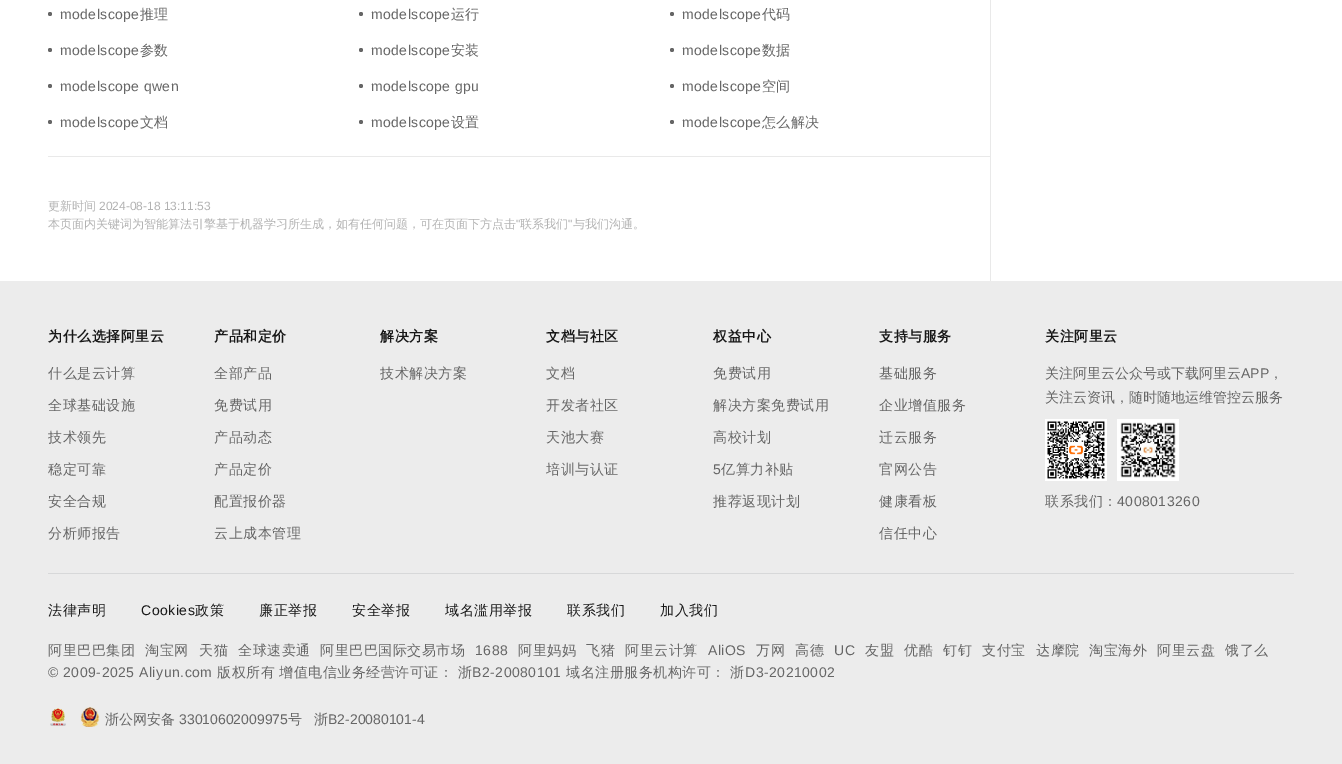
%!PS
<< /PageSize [1342 764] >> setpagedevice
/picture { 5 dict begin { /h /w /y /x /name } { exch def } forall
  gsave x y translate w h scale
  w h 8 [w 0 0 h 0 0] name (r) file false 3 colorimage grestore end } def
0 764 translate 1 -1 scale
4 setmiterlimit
1 setgray
0 0 1342 764 rectfill
0.914 setgray
990 0 1 281 rectfill
0.4 setgray
newpath 50 14 2 0 360 arc closepath fill
/LiberationSans-Regular [14 0 0 -14 0 0] selectfont
60 19 moveto 0.4 0 (modelscope) ashow
/WenQuanYiZenHei-Medium [14 0 0 -14 0 0] selectfont
140 19 moveto 0.4 0 (推理) ashow
newpath 361 14 2 0 360 arc closepath fill
/LiberationSans-Regular [14 0 0 -14 0 0] selectfont
371 19 moveto 0.4 0 (modelscope) ashow
/WenQuanYiZenHei-Medium [14 0 0 -14 0 0] selectfont
451 19 moveto 0.4 0 (运行) ashow
newpath 672 14 2 0 360 arc closepath fill
/LiberationSans-Regular [14 0 0 -14 0 0] selectfont
682 19 moveto 0.4 0 (modelscope) ashow
/WenQuanYiZenHei-Medium [14 0 0 -14 0 0] selectfont
762 19 moveto 0.4 0 (代码) ashow
newpath 50 50 2 0 360 arc closepath fill
/LiberationSans-Regular [14 0 0 -14 0 0] selectfont
60 55 moveto 0.4 0 (modelscope) ashow
/WenQuanYiZenHei-Medium [14 0 0 -14 0 0] selectfont
140 55 moveto 0.4 0 (参数) ashow
newpath 361 50 2 0 360 arc closepath fill
/LiberationSans-Regular [14 0 0 -14 0 0] selectfont
371 55 moveto 0.4 0 (modelscope) ashow
/WenQuanYiZenHei-Medium [14 0 0 -14 0 0] selectfont
451 55 moveto 0.4 0 (安装) ashow
newpath 672 50 2 0 360 arc closepath fill
/LiberationSans-Regular [14 0 0 -14 0 0] selectfont
682 55 moveto 0.4 0 (modelscope) ashow
/WenQuanYiZenHei-Medium [14 0 0 -14 0 0] selectfont
762 55 moveto 0.4 0 (数据) ashow
newpath 50 86 2 0 360 arc closepath fill
/LiberationSans-Regular [14 0 0 -14 0 0] selectfont
60 91 moveto 0.4 0 (modelscope qwen) ashow
newpath 361 86 2 0 360 arc closepath fill
371 91 moveto 0.4 0 (modelscope gpu) ashow
newpath 672 86 2 0 360 arc closepath fill
682 91 moveto 0.4 0 (modelscope) ashow
/WenQuanYiZenHei-Medium [14 0 0 -14 0 0] selectfont
762 91 moveto 0.4 0 (空间) ashow
newpath 50 122 2 0 360 arc closepath fill
/LiberationSans-Regular [14 0 0 -14 0 0] selectfont
60 127 moveto 0.4 0 (modelscope) ashow
/WenQuanYiZenHei-Medium [14 0 0 -14 0 0] selectfont
140 127 moveto 0.4 0 (文档) ashow
newpath 361 122 2 0 360 arc closepath fill
/LiberationSans-Regular [14 0 0 -14 0 0] selectfont
371 127 moveto 0.4 0 (modelscope) ashow
/WenQuanYiZenHei-Medium [14 0 0 -14 0 0] selectfont
451 127 moveto 0.4 0 (设置) ashow
newpath 672 122 2 0 360 arc closepath fill
/LiberationSans-Regular [14 0 0 -14 0 0] selectfont
682 127 moveto 0.4 0 (modelscope) ashow
/WenQuanYiZenHei-Medium [14 0 0 -14 0 0] selectfont
762 127 moveto 0.4 0 (怎么解决) ashow
0.914 setgray
48 156 942 1 rectfill
/WenQuanYiZenHei-Medium [12 0 0 -12 0 0] selectfont
0.698 setgray
48 210 moveto (更新时间) show
/LiberationSans-Regular [12 0 0 -12 0 0] selectfont
99 210 moveto (2024-08-18 13:11:53) show
/WenQuanYiZenHei-Medium [12 0 0 -12 0 0] selectfont
48 228 moveto (本页面内关键词为智能算法引擎基于机器学习所生成，如有任何问题，可在页面下方点击) show
/LiberationSans-Regular [12 0 0 -12 0 0] selectfont
516 228 moveto (") show
/WenQuanYiZenHei-Medium [12 0 0 -12 0 0] selectfont
520 228 moveto (联系我们) show
/LiberationSans-Regular [12 0 0 -12 0 0] selectfont
568 228 moveto (") show
/WenQuanYiZenHei-Medium [12 0 0 -12 0 0] selectfont
573 228 moveto (与我们沟通。) show
0.925 setgray
0 281 1342 483 rectfill
0.843 0.847 0.851 setrgbcolor
48 573 1246 1 rectfill
/WenQuanYiZenHei-Bold [14 0 0 -14 0 0] selectfont
0.094 setgray
48 341 moveto 0.5 0 (为什么选择阿里云) ashow
/WenQuanYiZenHei-Medium [14 0 0 -14 0 0] selectfont
0.4 setgray
48 378 moveto 0.5 0 (什么是云计算) ashow
48 410 moveto 0.5 0 (全球基础设施) ashow
48 442 moveto 0.5 0 (技术领先) ashow
48 474 moveto 0.5 0 (稳定可靠) ashow
48 506 moveto 0.5 0 (安全合规) ashow
48 538 moveto 0.5 0 (分析师报告) ashow
/WenQuanYiZenHei-Bold [14 0 0 -14 0 0] selectfont
0.094 setgray
214 341 moveto 0.5 0 (产品和定价) ashow
/WenQuanYiZenHei-Medium [14 0 0 -14 0 0] selectfont
0.4 setgray
214 378 moveto 0.5 0 (全部产品) ashow
214 410 moveto 0.5 0 (免费试用) ashow
214 442 moveto 0.5 0 (产品动态) ashow
214 474 moveto 0.5 0 (产品定价) ashow
214 506 moveto 0.5 0 (配置报价器) ashow
214 538 moveto 0.5 0 (云上成本管理) ashow
/WenQuanYiZenHei-Bold [14 0 0 -14 0 0] selectfont
0.094 setgray
380 341 moveto 0.5 0 (解决方案) ashow
/WenQuanYiZenHei-Medium [14 0 0 -14 0 0] selectfont
0.4 setgray
380 378 moveto 0.5 0 (技术解决方案) ashow
/WenQuanYiZenHei-Bold [14 0 0 -14 0 0] selectfont
0.094 setgray
546 341 moveto 0.5 0 (文档与社区) ashow
/WenQuanYiZenHei-Medium [14 0 0 -14 0 0] selectfont
0.4 setgray
546 378 moveto 0.5 0 (文档) ashow
546 410 moveto 0.5 0 (开发者社区) ashow
546 442 moveto 0.5 0 (天池大赛) ashow
546 474 moveto 0.5 0 (培训与认证) ashow
/WenQuanYiZenHei-Bold [14 0 0 -14 0 0] selectfont
0.094 setgray
713 341 moveto 0.5 0 (权益中心) ashow
/WenQuanYiZenHei-Medium [14 0 0 -14 0 0] selectfont
0.4 setgray
713 378 moveto 0.5 0 (免费试用) ashow
713 410 moveto 0.5 0 (解决方案免费试用) ashow
713 442 moveto 0.5 0 (高校计划) ashow
/LiberationSans-Regular [14 0 0 -14 0 0] selectfont
713 474 moveto 0.5 0 (5) ashow
/WenQuanYiZenHei-Medium [14 0 0 -14 0 0] selectfont
721 474 moveto 0.5 0 (亿算力补贴) ashow
713 506 moveto 0.5 0 (推荐返现计划) ashow
/WenQuanYiZenHei-Bold [14 0 0 -14 0 0] selectfont
0.094 setgray
879 341 moveto 0.5 0 (支持与服务) ashow
/WenQuanYiZenHei-Medium [14 0 0 -14 0 0] selectfont
0.4 setgray
879 378 moveto 0.5 0 (基础服务) ashow
879 410 moveto 0.5 0 (企业增值服务) ashow
879 442 moveto 0.5 0 (迁云服务) ashow
879 474 moveto 0.5 0 (官网公告) ashow
879 506 moveto 0.5 0 (健康看板) ashow
879 538 moveto 0.5 0 (信任中心) ashow
/WenQuanYiZenHei-Bold [14 0 0 -14 0 0] selectfont
0.094 setgray
1045 341 moveto 0.5 0 (关注阿里云) ashow
/WenQuanYiZenHei-Medium [14 0 0 -14 0 0] selectfont
0.4 setgray
1045 378 moveto (关注阿里云公众号或下载阿里云) show
/LiberationSans-Regular [14 0 0 -14 0 0] selectfont
1241 378 moveto (APP) show
/WenQuanYiZenHei-Medium [14 0 0 -14 0 0] selectfont
1269 378 moveto (，) show
1045 402 moveto (关注云资讯，随时随地运维管控云服务) show
(img1.rgb) 1045 419 62 62 picture
(img2.rgb) 1117 419 62 62 picture
1045 506 moveto 0.5 0 (联系我们：) ashow
/LiberationSans-Regular [14 0 0 -14 0 0] selectfont
1117 506 moveto 0.5 0 (4008013260) ashow
/WenQuanYiZenHei-Medium [14 0 0 -14 0 0] selectfont
0.094 setgray
48 615 moveto 0.5 0 (法律声明) ashow
/LiberationSans-Regular [14 0 0 -14 0 0] selectfont
141 615 moveto 0.5 0 (Cookies) ashow
/WenQuanYiZenHei-Medium [14 0 0 -14 0 0] selectfont
195 615 moveto 0.5 0 (政策) ashow
259 615 moveto 0.5 0 (廉正举报) ashow
352 615 moveto 0.5 0 (安全举报) ashow
445 615 moveto 0.5 0 (域名滥用举报) ashow
567 615 moveto 0.5 0 (联系我们) ashow
660 615 moveto 0.5 0 (加入我们) ashow
0.4 setgray
48 655 moveto 0.5 0 (阿里巴巴集团) ashow
145 655 moveto 0.5 0 (淘宝网) ashow
199 655 moveto 0.5 0 (天猫) ashow
238 655 moveto 0.5 0 (全球速卖通) ashow
320 655 moveto 0.5 0 (阿里巴巴国际交易市场) ashow
/LiberationSans-Regular [14 0 0 -14 0 0] selectfont
475 655 moveto 0.5 0 (1688) ashow
/WenQuanYiZenHei-Medium [14 0 0 -14 0 0] selectfont
518 655 moveto 0.5 0 (阿里妈妈) ashow
586 655 moveto 0.5 0 (飞猪) ashow
625 655 moveto 0.5 0 (阿里云计算) ashow
/LiberationSans-Regular [14 0 0 -14 0 0] selectfont
708 655 moveto 0.5 0 (AliOS) ashow
/WenQuanYiZenHei-Medium [14 0 0 -14 0 0] selectfont
756 655 moveto 0.5 0 (万网) ashow
795 655 moveto 0.5 0 (高德) ashow
/LiberationSans-Regular [14 0 0 -14 0 0] selectfont
834 655 moveto 0.5 0 (UC) ashow
/WenQuanYiZenHei-Medium [14 0 0 -14 0 0] selectfont
865 655 moveto 0.5 0 (友盟) ashow
904 655 moveto 0.5 0 (优酷) ashow
943 655 moveto 0.5 0 (钉钉) ashow
982 655 moveto 0.5 0 (支付宝) ashow
1036 655 moveto 0.5 0 (达摩院) ashow
1089 655 moveto 0.5 0 (淘宝海外) ashow
1157 655 moveto 0.5 0 (阿里云盘) ashow
1225 655 moveto 0.5 0 (饿了么) ashow
/LiberationSans-Regular [14 0 0 -14 0 0] selectfont
48 677 moveto 0.5 0 (© 2009-2025 Aliyun.com) ashow
/WenQuanYiZenHei-Medium [14 0 0 -14 0 0] selectfont
217 677 moveto 0.5 0 (版权所有) ashow
279 677 moveto 0.5 0 (增值电信业务经营许可证：) ashow
458 677 moveto 0.5 0 (浙) ashow
/LiberationSans-Regular [14 0 0 -14 0 0] selectfont
472 677 moveto 0.5 0 (B2-20080101) ashow
/WenQuanYiZenHei-Medium [14 0 0 -14 0 0] selectfont
566 677 moveto 0.5 0 (域名注册服务机构许可：) ashow
730 677 moveto 0.5 0 (浙) ashow
/LiberationSans-Regular [14 0 0 -14 0 0] selectfont
745 677 moveto 0.5 0 (D3-20210002) ashow
(img3.rgb) 50 708 16 18 picture
(img4.rgb) 80 707 20 20 picture
/WenQuanYiZenHei-Medium [14 0 0 -14 0 0] selectfont
105 724 moveto (浙公网安备) show
/LiberationSans-Regular [14 0 0 -14 0 0] selectfont
179 724 moveto (33010602009975) show
/WenQuanYiZenHei-Medium [14 0 0 -14 0 0] selectfont
288 724 moveto (号) show
314 724 moveto (浙) show
/LiberationSans-Regular [14 0 0 -14 0 0] selectfont
328 724 moveto (B2-20080101-4) show
showpage
